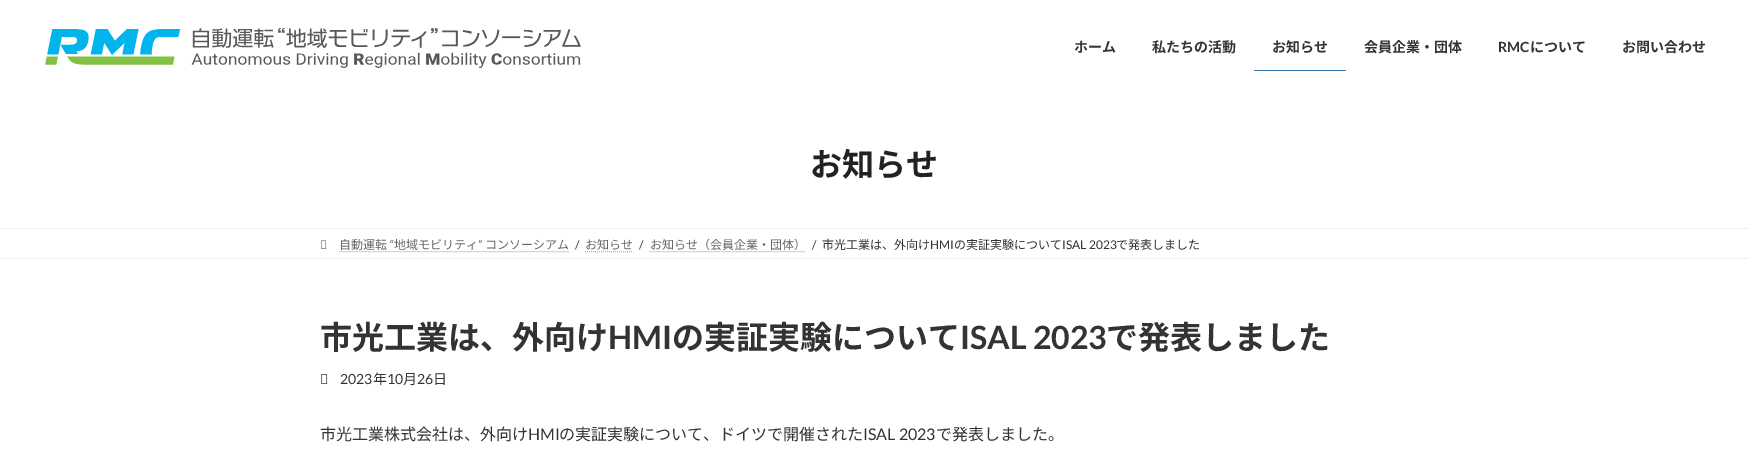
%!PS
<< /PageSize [1749 456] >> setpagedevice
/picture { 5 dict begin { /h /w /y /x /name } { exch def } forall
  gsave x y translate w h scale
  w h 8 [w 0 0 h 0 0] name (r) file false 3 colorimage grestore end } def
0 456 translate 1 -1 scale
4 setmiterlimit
1 setgray
0 0 1749 456 rectfill
(img1.rgb) 45 28 536 40 picture
/NotoSansJP-Bold [14 0 0 -14 0 0] selectfont
0.2 setgray
1074 52 moveto (ホーム) show
1152 52 moveto (私たちの活動) show
1272 52 moveto (お知らせ) show
0.2 0.478 0.718 setrgbcolor
1254 70 92 1 rectfill
0.2 setgray
1364 52 moveto (会員企業・団体) show
/Lato-Bold [14 0 0 -14 0 0] selectfont
1498 52 moveto (RMC) show
/NotoSansJP-Bold [14 0 0 -14 0 0] selectfont
1530 52 moveto (について) show
1622 52 moveto (お問い合わせ) show
/NotoSansJP-Bold [32 0 0 -32 0 0] selectfont
0.133 setgray
810 176 moveto (お知らせ) show
0.941 setgray
0 228 1749 1 rectfill
0 258 1749 1 rectfill
(img2.rgb) 321 240 6 9 picture
/NotoSansJP-Regular [12 0 0 -12 0 0] selectfont
0.4 setgray
339 249 moveto (自動運転) show
/Lato-Regular [12 0 0 -12 0 0] selectfont
390 249 moveto (“) show
/NotoSansJP-Regular [12 0 0 -12 0 0] selectfont
394 249 moveto (地域モビリティ) show
/Lato-Regular [12 0 0 -12 0 0] selectfont
478 249 moveto (”) show
/NotoSansJP-Regular [12 0 0 -12 0 0] selectfont
485 249 moveto (コンソーシアム) show
0.702 setgray
[1 1] 0 setdash
newpath 339.5 251.5 moveto 568.5 251.5 lineto stroke
/Lato-Regular [12 0 0 -12 0 0] selectfont
0.2 setgray
575 249 moveto (/) show
/NotoSansJP-Regular [12 0 0 -12 0 0] selectfont
0.4 setgray
585 249 moveto (お知らせ) show
0.702 setgray
newpath 585 251.5 moveto 633 251.5 lineto stroke
/Lato-Regular [12 0 0 -12 0 0] selectfont
0.2 setgray
639 249 moveto (/) show
/NotoSansJP-Regular [12 0 0 -12 0 0] selectfont
0.4 setgray
650 249 moveto (お知らせ（会員企業・団体）) show
0.702 setgray
newpath 649.5 251.5 moveto 805.5 251.5 lineto stroke
/Lato-Regular [12 0 0 -12 0 0] selectfont
0.2 setgray
812 249 moveto (/) show
/NotoSansJP-Regular [12 0 0 -12 0 0] selectfont
822 249 moveto (市光工業は、外向け) show
/Lato-Regular [12 0 0 -12 0 0] selectfont
930 249 moveto (HMI) show
/NotoSansJP-Regular [12 0 0 -12 0 0] selectfont
954 249 moveto (の実証実験について) show
/Lato-Regular [12 0 0 -12 0 0] selectfont
1062 249 moveto (ISAL 2023) show
/NotoSansJP-Regular [12 0 0 -12 0 0] selectfont
1116 249 moveto (で発表しました) show
/NotoSansJP-Bold [32 0 0 -32 0 0] selectfont
320 349 moveto (市光工業は、外向け) show
/Lato-Bold [32 0 0 -32 0 0] selectfont
608 349 moveto (HMI) show
/NotoSansJP-Bold [32 0 0 -32 0 0] selectfont
672 349 moveto (の実証実験について) show
/Lato-Bold [32 0 0 -32 0 0] selectfont
960 349 moveto (ISAL 2023) show
/NotoSansJP-Bold [32 0 0 -32 0 0] selectfont
1106 349 moveto (で発表しました) show
(img3.rgb) 321 374 7 10 picture
/Lato-Regular [14 0 0 -14 0 0] selectfont
340 384 moveto (2023) show
/NotoSansJP-Regular [14 0 0 -14 0 0] selectfont
373 384 moveto (年) show
/Lato-Regular [14 0 0 -14 0 0] selectfont
387 384 moveto (10) show
/NotoSansJP-Regular [14 0 0 -14 0 0] selectfont
403 384 moveto (月) show
/Lato-Regular [14 0 0 -14 0 0] selectfont
417 384 moveto (26) show
/NotoSansJP-Regular [14 0 0 -14 0 0] selectfont
433 384 moveto (日) show
/NotoSansJP-Regular [16 0 0 -16 0 0] selectfont
320 440 moveto (市光工業株式会社は、外向け) show
/Lato-Regular [16 0 0 -16 0 0] selectfont
528 440 moveto (HMI) show
/NotoSansJP-Regular [16 0 0 -16 0 0] selectfont
559 440 moveto (の実証実験について、ドイツで開催された) show
/Lato-Regular [16 0 0 -16 0 0] selectfont
863 440 moveto (ISAL 2023) show
/NotoSansJP-Regular [16 0 0 -16 0 0] selectfont
936 440 moveto (で発表しました。) show
showpage
